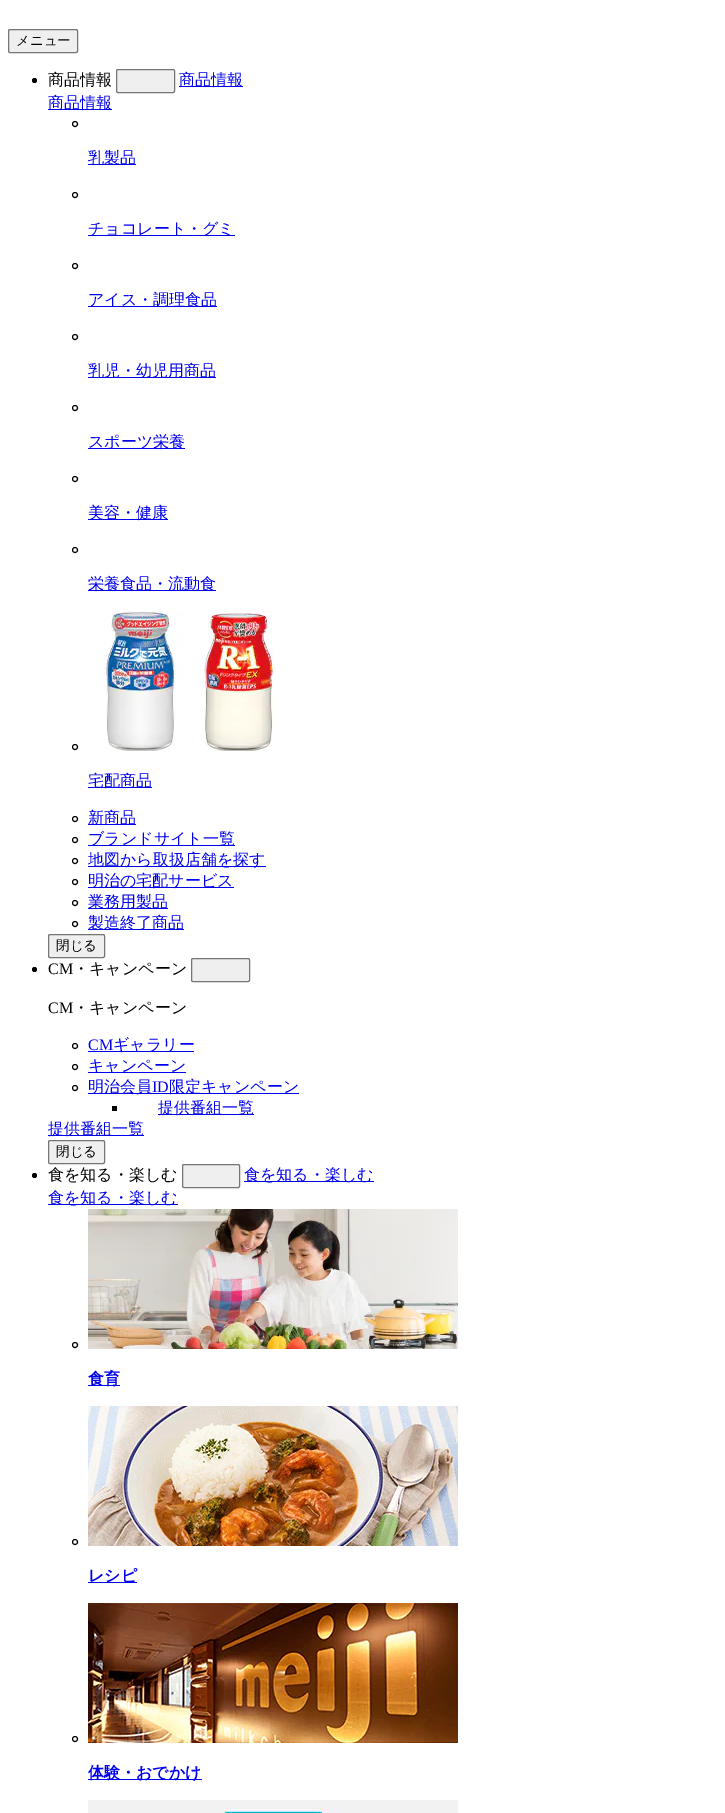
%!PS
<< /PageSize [725 1813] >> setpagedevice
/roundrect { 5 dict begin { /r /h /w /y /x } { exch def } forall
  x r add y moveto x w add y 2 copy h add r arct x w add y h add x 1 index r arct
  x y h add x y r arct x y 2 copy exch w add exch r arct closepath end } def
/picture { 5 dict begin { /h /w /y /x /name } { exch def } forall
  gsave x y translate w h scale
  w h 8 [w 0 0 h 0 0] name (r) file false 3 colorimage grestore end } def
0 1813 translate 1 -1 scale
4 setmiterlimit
1 setgray
0 0 725 1813 rectfill
0.937 setgray
8.5 29.5 69 23 1.5 roundrect gsave fill grestore
0.463 setgray
stroke
/WenQuanYiZenHei-Medium [13.5 0 0 -13.5 0 0] selectfont
0 setgray
16 45 moveto (メニュー) show
newpath 34.5 80.5 2.5 0 360 arc closepath fill
/WenQuanYiZenHei-Medium [16 0 0 -16 0 0] selectfont
48 85 moveto (商品情報) show
0.937 setgray
116.5 69.5 58 23 1.5 roundrect gsave fill grestore
0.463 setgray
stroke
0 0 0.933 setrgbcolor
179 86 64 1 rectfill
179 85 moveto (商品情報) show
48 109 64 1 rectfill
48 108 moveto (商品情報) show
0 setgray
newpath 75 124 2.5 0 360 arc closepath stroke
0 0 0.933 setrgbcolor
88 164 48 1 rectfill
88 163 moveto (乳製品) show
0 setgray
newpath 75 195 2.5 0 360 arc closepath stroke
0 0 0.933 setrgbcolor
88 235 147 1 rectfill
88 234 moveto (チョコレート・グミ) show
0 setgray
newpath 75 266 2.5 0 360 arc closepath stroke
0 0 0.933 setrgbcolor
88 306 129 1 rectfill
88 305 moveto (アイス・調理食品) show
0 setgray
newpath 75 337 2.5 0 360 arc closepath stroke
0 0 0.933 setrgbcolor
88 377 128 1 rectfill
88 376 moveto (乳児・幼児用商品) show
0 setgray
newpath 75 408 2.5 0 360 arc closepath stroke
0 0 0.933 setrgbcolor
88 448 97 1 rectfill
88 447 moveto (スポーツ栄養) show
0 setgray
newpath 75 479 2.5 0 360 arc closepath stroke
0 0 0.933 setrgbcolor
88 519 80 1 rectfill
88 518 moveto (美容・健康) show
0 setgray
newpath 75 550 2.5 0 360 arc closepath stroke
0 0 0.933 setrgbcolor
88 590 128 1 rectfill
88 589 moveto (栄養食品・流動食) show
0 setgray
newpath 75 747 2.5 0 360 arc closepath stroke
(img1.rgb) 103 611 172 140 picture
0 0 0.933 setrgbcolor
88 787 64 1 rectfill
88 786 moveto (宅配商品) show
0 setgray
newpath 75 819 2.5 0 360 arc closepath stroke
0 0 0.933 setrgbcolor
88 824 48 1 rectfill
88 823 moveto (新商品) show
0 setgray
newpath 75 840 2.5 0 360 arc closepath stroke
0 0 0.933 setrgbcolor
88 845 147 1 rectfill
88 844 moveto (ブランドサイト一覧) show
0 setgray
newpath 75 861 2.5 0 360 arc closepath stroke
0 0 0.933 setrgbcolor
88 866 178 1 rectfill
88 865 moveto (地図から取扱店舗を探す) show
0 setgray
newpath 75 882 2.5 0 360 arc closepath stroke
0 0 0.933 setrgbcolor
88 887 146 1 rectfill
88 886 moveto (明治の宅配サービス) show
0 setgray
newpath 75 903 2.5 0 360 arc closepath stroke
0 0 0.933 setrgbcolor
88 908 80 1 rectfill
88 907 moveto (業務用製品) show
0 setgray
newpath 75 924 2.5 0 360 arc closepath stroke
0 0 0.933 setrgbcolor
88 929 96 1 rectfill
88 928 moveto (製造終了商品) show
0.937 setgray
48.5 934.5 56 23 1.5 roundrect gsave fill grestore
0.463 setgray
stroke
/WenQuanYiZenHei-Medium [13.5 0 0 -13.5 0 0] selectfont
0 setgray
56 950 moveto (閉じる) show
newpath 34.5 969.5 2.5 0 360 arc closepath fill
/LiberationSerif-Regular [16 0 0 -16 0 0] selectfont
48 974 moveto (CM) show
/WenQuanYiZenHei-Medium [16 0 0 -16 0 0] selectfont
73 974 moveto (・キャンペーン) show
0.937 setgray
191.5 958.5 58 23 1.5 roundrect gsave fill grestore
0.463 setgray
stroke
/LiberationSerif-Regular [16 0 0 -16 0 0] selectfont
0 setgray
48 1013 moveto (CM) show
/WenQuanYiZenHei-Medium [16 0 0 -16 0 0] selectfont
73 1013 moveto (・キャンペーン) show
newpath 75 1046 2.5 0 360 arc closepath stroke
/LiberationSerif-Regular [16 0 0 -16 0 0] selectfont
0 0 0.933 setrgbcolor
88 1050 moveto (CM) show
88 1051 106 1 rectfill
/WenQuanYiZenHei-Medium [16 0 0 -16 0 0] selectfont
113 1050 moveto (ギャラリー) show
0 setgray
newpath 75 1067 2.5 0 360 arc closepath stroke
0 0 0.933 setrgbcolor
88 1072 98 1 rectfill
88 1071 moveto (キャンペーン) show
0 setgray
newpath 75 1088 2.5 0 360 arc closepath stroke
0 0 0.933 setrgbcolor
88 1093 211 1 rectfill
88 1092 moveto (明治会員) show
/LiberationSerif-Regular [16 0 0 -16 0 0] selectfont
152 1092 moveto (ID) show
/WenQuanYiZenHei-Medium [16 0 0 -16 0 0] selectfont
169 1092 moveto (限定キャンペーン) show
0 setgray
112 1106 5 5 rectfill
0 0 0.933 setrgbcolor
158 1114 96 1 rectfill
158 1113 moveto (提供番組一覧) show
48 1135 96 1 rectfill
48 1134 moveto (提供番組一覧) show
0.937 setgray
48.5 1140.5 56 23 1.5 roundrect gsave fill grestore
0.463 setgray
stroke
/WenQuanYiZenHei-Medium [13.5 0 0 -13.5 0 0] selectfont
0 setgray
56 1156 moveto (閉じる) show
newpath 34.5 1175.5 2.5 0 360 arc closepath fill
/WenQuanYiZenHei-Medium [16 0 0 -16 0 0] selectfont
48 1180 moveto (食を知る・楽しむ) show
0.937 setgray
182.5 1164.5 57 23 1.5 roundrect gsave fill grestore
0.463 setgray
stroke
0 0 0.933 setrgbcolor
244 1181 130 1 rectfill
244 1180 moveto (食を知る・楽しむ) show
48 1204 130 1 rectfill
48 1203 moveto (食を知る・楽しむ) show
0 setgray
newpath 75 1345 2.5 0 360 arc closepath stroke
(img2.rgb) 88 1209 370 140 picture
0 0 0.933 setrgbcolor
88 1385 32 1 rectfill
/WenQuanYiZenHei-Bold [16 0 0 -16 0 0] selectfont
88 1384 moveto (食育) show
0 setgray
newpath 75 1542 2.5 0 360 arc closepath stroke
(img3.rgb) 88 1406 370 140 picture
0 0 0.933 setrgbcolor
88 1582 49 1 rectfill
88 1581 moveto (レシピ) show
0 setgray
newpath 75 1739 2.5 0 360 arc closepath stroke
(img4.rgb) 88 1603 370 140 picture
0 0 0.933 setrgbcolor
88 1779 114 1 rectfill
88 1778 moveto (体験・おでかけ) show
(img5.rgb) 88 1800 370 13 picture
showpage
